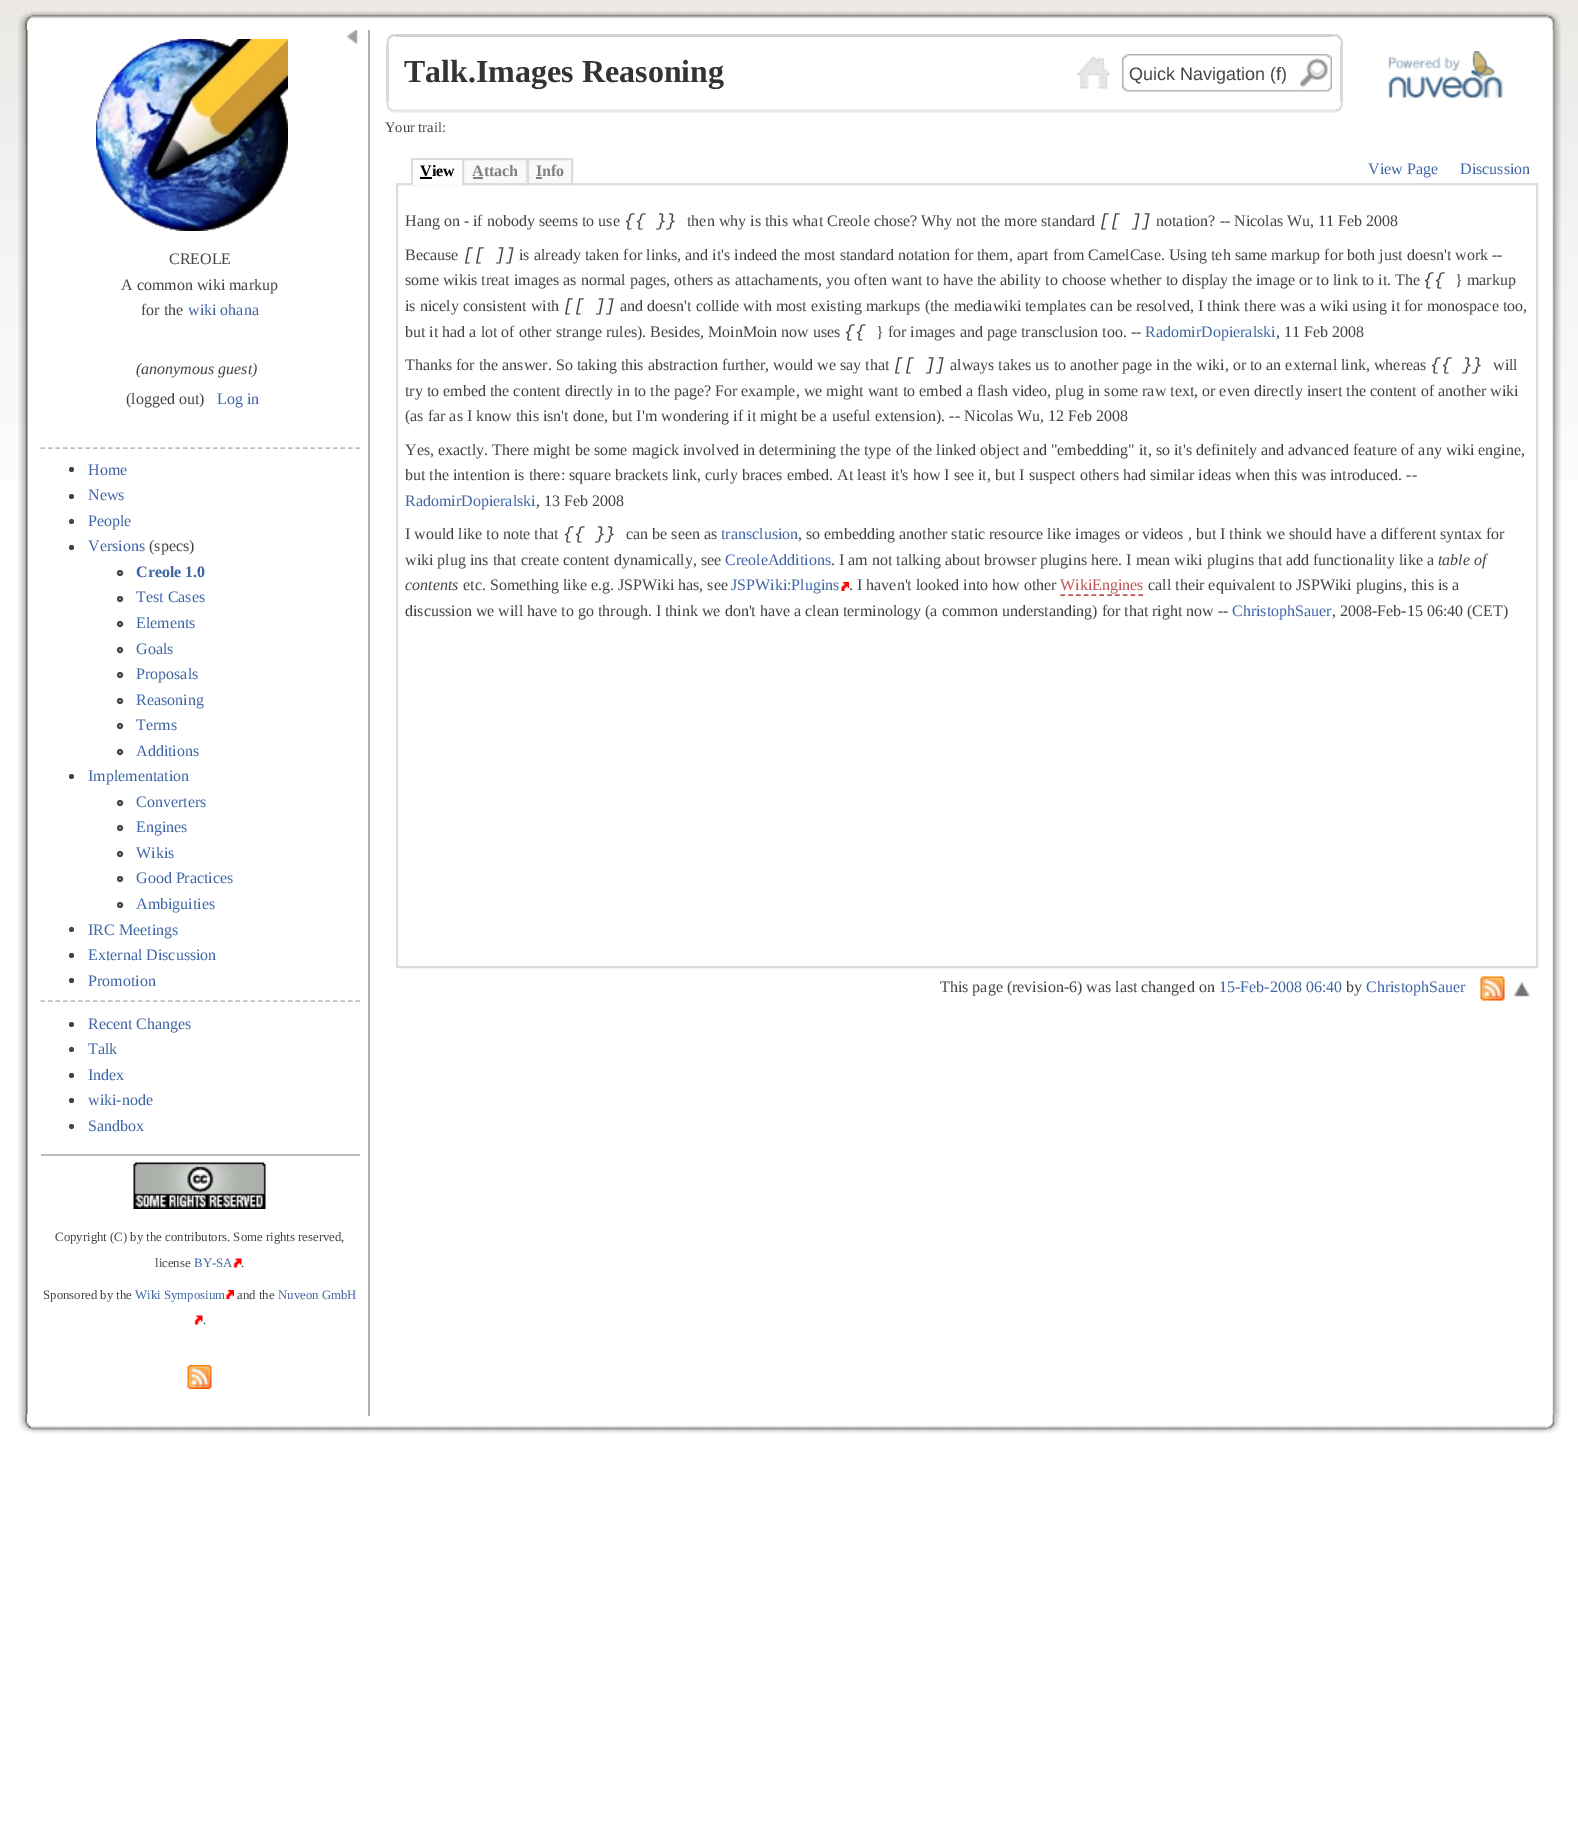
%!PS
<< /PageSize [1578 1829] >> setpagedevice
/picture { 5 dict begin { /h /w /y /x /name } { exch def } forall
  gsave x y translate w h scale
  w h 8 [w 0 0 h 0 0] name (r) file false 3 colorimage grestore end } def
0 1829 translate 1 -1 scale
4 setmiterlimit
1 setgray
0 0 1578 1829 rectfill
(img1.rgb) 0 0 1578 480 picture
(img2.rgb) 18 12 14 18 picture
(img3.rgb) 31 11 1516 19 picture
(img4.rgb) 1546 11 15 19 picture
(img5.rgb) 18 30 14 1385 picture
31 30 337 450 rectfill
0.694 0.694 0.698 setrgbcolor
368 30 2 1386 rectfill
(img6.rgb) 346 30 12 14 picture
(img7.rgb) 96 39 192 192 picture
/LiberationSerif-Regular [16 0 0 -16 0 0] selectfont
0.267 0.271 0.278 setrgbcolor
169 264 moveto (CREOLE) show
121 290 moveto (A common wiki markup) show
141 315 moveto (for the) show
0.247 0.404 0.651 setrgbcolor
188 315 moveto (wiki ohana) show
/LiberationSerif-Italic [16 0 0 -16 0 0] selectfont
0.267 0.271 0.278 setrgbcolor
136 374 moveto (\(anonymous guest\)) show
/LiberationSerif-Regular [16 0 0 -16 0 0] selectfont
126 404 moveto (\(logged out\)) show
0.247 0.404 0.651 setrgbcolor
217 404 moveto (Log in) show
0.749 setgray
1.5 setlinewidth
[4.5 3] 0 setdash
newpath 40.5 448 moveto 360 448 lineto stroke
0.267 0.271 0.278 setrgbcolor
newpath 71.5 469.5 2.5 0 360 arc closepath fill
0.247 0.404 0.651 setrgbcolor
88 475 moveto (Home) show
0.267 0.271 0.278 setrgbcolor
newpath 71.5 496.5 2.5 0 360 arc closepath fill
0.247 0.404 0.651 setrgbcolor
88 500 moveto (News) show
0.267 0.271 0.278 setrgbcolor
newpath 71.5 521.5 2.5 0 360 arc closepath fill
0.247 0.404 0.651 setrgbcolor
88 526 moveto (People) show
0.267 0.271 0.278 setrgbcolor
newpath 71.5 547.5 2.5 0 360 arc closepath fill
0.247 0.404 0.651 setrgbcolor
88 551 moveto (Versions) show
0.267 0.271 0.278 setrgbcolor
149 551 moveto (\(specs\)) show
2 setlinewidth
[] 0 setdash
newpath 120 573 2 0 360 arc closepath stroke
/LiberationSerif-Bold [16 0 0 -16 0 0] selectfont
0.247 0.404 0.651 setrgbcolor
136 577 moveto (Creole 1.0) show
0.267 0.271 0.278 setrgbcolor
newpath 120 599 2 0 360 arc closepath stroke
/LiberationSerif-Regular [16 0 0 -16 0 0] selectfont
0.247 0.404 0.651 setrgbcolor
136 602 moveto (Test Cases) show
0.267 0.271 0.278 setrgbcolor
newpath 120 624 2 0 360 arc closepath stroke
0.247 0.404 0.651 setrgbcolor
136 628 moveto (Elements) show
0.267 0.271 0.278 setrgbcolor
newpath 120 650 2 0 360 arc closepath stroke
0.247 0.404 0.651 setrgbcolor
136 654 moveto (Goals) show
0.267 0.271 0.278 setrgbcolor
newpath 120 675 2 0 360 arc closepath stroke
0.247 0.404 0.651 setrgbcolor
136 679 moveto (Proposals) show
0.267 0.271 0.278 setrgbcolor
newpath 120 701 2 0 360 arc closepath stroke
0.247 0.404 0.651 setrgbcolor
136 705 moveto (Reasoning) show
0.267 0.271 0.278 setrgbcolor
newpath 120 726 2 0 360 arc closepath stroke
0.247 0.404 0.651 setrgbcolor
136 730 moveto (Terms) show
0.267 0.271 0.278 setrgbcolor
newpath 120 752 2 0 360 arc closepath stroke
0.247 0.404 0.651 setrgbcolor
136 756 moveto (Additions) show
0.267 0.271 0.278 setrgbcolor
newpath 71.5 776.5 2.5 0 360 arc closepath fill
0.247 0.404 0.651 setrgbcolor
88 781 moveto (Implementation) show
0.267 0.271 0.278 setrgbcolor
newpath 120 803 2 0 360 arc closepath stroke
0.247 0.404 0.651 setrgbcolor
136 807 moveto (Converters) show
0.267 0.271 0.278 setrgbcolor
newpath 120 828 2 0 360 arc closepath stroke
0.247 0.404 0.651 setrgbcolor
136 832 moveto (Engines) show
0.267 0.271 0.278 setrgbcolor
newpath 120 854 2 0 360 arc closepath stroke
0.247 0.404 0.651 setrgbcolor
136 858 moveto (Wikis) show
0.267 0.271 0.278 setrgbcolor
newpath 120 879 2 0 360 arc closepath stroke
0.247 0.404 0.651 setrgbcolor
136 883 moveto (Good Practices) show
0.267 0.271 0.278 setrgbcolor
newpath 120 905 2 0 360 arc closepath stroke
0.247 0.404 0.651 setrgbcolor
136 909 moveto (Ambiguities) show
0.267 0.271 0.278 setrgbcolor
newpath 71.5 929.5 2.5 0 360 arc closepath fill
0.247 0.404 0.651 setrgbcolor
88 935 moveto (IRC Meetings) show
0.267 0.271 0.278 setrgbcolor
newpath 71.5 955.5 2.5 0 360 arc closepath fill
0.247 0.404 0.651 setrgbcolor
88 960 moveto (External Discussion) show
0.267 0.271 0.278 setrgbcolor
newpath 71.5 980.5 2.5 0 360 arc closepath fill
0.247 0.404 0.651 setrgbcolor
88 986 moveto (Promotion) show
0.749 setgray
1.5 setlinewidth
[4.5 3] 0 setdash
newpath 40.5 1001 moveto 360 1001 lineto stroke
0.267 0.271 0.278 setrgbcolor
newpath 71.5 1024.5 2.5 0 360 arc closepath fill
0.247 0.404 0.651 setrgbcolor
88 1029 moveto (Recent Changes) show
0.267 0.271 0.278 setrgbcolor
newpath 71.5 1049.5 2.5 0 360 arc closepath fill
0.247 0.404 0.651 setrgbcolor
88 1054 moveto (Talk) show
0.267 0.271 0.278 setrgbcolor
newpath 71.5 1075.5 2.5 0 360 arc closepath fill
0.247 0.404 0.651 setrgbcolor
88 1080 moveto (Index) show
0.267 0.271 0.278 setrgbcolor
newpath 71.5 1100.5 2.5 0 360 arc closepath fill
0.247 0.404 0.651 setrgbcolor
88 1105 moveto (wiki-node) show
0.267 0.271 0.278 setrgbcolor
newpath 71.5 1126.5 2.5 0 360 arc closepath fill
0.247 0.404 0.651 setrgbcolor
88 1131 moveto (Sandbox) show
0.749 setgray
41 1154 319 2 rectfill
(img8.rgb) 133 1162 133 47 picture
/LiberationSerif-Regular [12.8 0 0 -12.8 0 0] selectfont
0.267 0.271 0.278 setrgbcolor
55 1241 moveto (Copyright \(C\) by the contributors. Some rights reserved,) show
155 1267 moveto (license) show
0.247 0.404 0.651 setrgbcolor
194 1267 moveto (BY-SA) show
(img9.rgb) 233 1258 9 10 picture
0.267 0.271 0.278 setrgbcolor
241 1267 moveto (.) show
43 1299 moveto (Sponsored by the) show
0.247 0.404 0.651 setrgbcolor
135 1299 moveto (Wiki Symposium) show
(img10.rgb) 226 1290 8 9 picture
0.267 0.271 0.278 setrgbcolor
237 1299 moveto (and the) show
0.247 0.404 0.651 setrgbcolor
278 1299 moveto (Nuveon GmbH) show
(img9.rgb) 194 1315 9 10 picture
0.267 0.271 0.278 setrgbcolor
203 1324 moveto (.) show
(img11.rgb) 187 1365 25 24 picture
1 setgray
370 30 1177 450 rectfill
(img12.rgb) 386 34 10 11 picture
0.824 setgray
396 34 936 3 rectfill
(img13.rgb) 1332 34 11 11 picture
0.855 0.855 0.851 setrgbcolor
386 45 3 57 rectfill
/LiberationSerif-Bold [32 0 0 -32 0 0] selectfont
0.2 setgray
404 82 moveto (Talk.Images Reasoning) show
(img14.rgb) 1077 57 33 32 picture
(img15.rgb) 1122 54 179 38 picture
/LiberationSans-Regular [18 0 0 -18 0 0] selectfont
0.267 0.271 0.278 setrgbcolor
1129 80 moveto (Quick Navigation \(f\)) show
(img16.rgb) 1300 54 32 38 picture
0.847 setgray
1340 45 3 57 rectfill
(img17.rgb) 386 102 10 11 picture
(img18.rgb) 396 109 936 4 picture
(img19.rgb) 1332 102 11 11 picture
(img20.rgb) 1388 51 116 47 picture
/LiberationSerif-Regular [14.5 0 0 -14.5 0 0] selectfont
0.267 0.271 0.278 setrgbcolor
385 132 moveto (Your trail:) show
0.867 setgray
411 158 53 2 rectfill
2 setlinewidth
[] 0 setdash
397 184 1140 783 rectstroke
1 setgray
411 183 53 2 rectfill
0.867 setgray
411 158 2 27 rectfill
/LiberationSerif-Bold [16 0 0 -16 0 0] selectfont
0 setgray
420 176 moveto (View) show
420 177 12 2 rectfill
0.976 setgray
newpath 463 159 moveto 527 159 lineto 527 184 lineto 463 184 lineto closepath gsave fill grestore
0.867 setgray
stroke
0.502 setgray
472 176 moveto (Attach) show
473 177 10 2 rectfill
0.976 setgray
newpath 528 159 moveto 572 159 lineto 572 184 lineto 528 184 lineto closepath gsave fill grestore
0.867 setgray
stroke
0.502 setgray
536 176 moveto (Info) show
536 177 6 2 rectfill
/LiberationSerif-Regular [16 0 0 -16 0 0] selectfont
0.247 0.404 0.651 setrgbcolor
1368 174 moveto (View Page) show
1460 174 moveto (Discussion) show
0.267 0.271 0.278 setrgbcolor
405 226 moveto (Hang on - if nobody seems to use) show
/LiberationMono-Italic [17.5 0 0 -17.5 0 0] selectfont
624 226 moveto ({{ }}) show
/LiberationSerif-Regular [16 0 0 -16 0 0] selectfont
687 226 moveto (then why is this what Creole chose? Why not the more standard) show
/LiberationMono-Italic [17.5 0 0 -17.5 0 0] selectfont
1099 226 moveto ([[ ]]) show
/LiberationSerif-Regular [16 0 0 -16 0 0] selectfont
1156 226 moveto (notation? -- Nicolas Wu, 11 Feb 2008) show
405 260 moveto (Because) show
/LiberationMono-Italic [17.5 0 0 -17.5 0 0] selectfont
463 260 moveto ([[ ]]) show
/LiberationSerif-Regular [16 0 0 -16 0 0] selectfont
519 260 moveto (is already taken for links, and it's indeed the most standard notation for them, apart from CamelCase. Using teh same markup for both just doesn't work --) show
405 285 moveto (some wikis treat images as normal pages, others as attachaments, you often want to have the ability to choose whether to display the image or to link to it. The) show
/LiberationMono-Italic [17.5 0 0 -17.5 0 0] selectfont
1423 285 moveto ({{) show
/LiberationSerif-Regular [16 0 0 -16 0 0] selectfont
1455 285 moveto (} markup) show
405 311 moveto (is nicely consistent with) show
/LiberationMono-Italic [17.5 0 0 -17.5 0 0] selectfont
563 311 moveto ([[ ]]) show
/LiberationSerif-Regular [16 0 0 -16 0 0] selectfont
620 311 moveto (and doesn't collide with most existing markups \(the mediawiki templates can be resolved, I think there was a wiki using it for monospace too,) show
405 337 moveto (but it had a lot of other strange rules\). Besides, MoinMoin now uses) show
/LiberationMono-Italic [17.5 0 0 -17.5 0 0] selectfont
844 337 moveto ({{) show
/LiberationSerif-Regular [16 0 0 -16 0 0] selectfont
876 337 moveto (} for images and page transclusion too. --) show
0.247 0.404 0.651 setrgbcolor
1145 337 moveto (RadomirDopieralski) show
0.267 0.271 0.278 setrgbcolor
1276 337 moveto (, 11 Feb 2008) show
405 370 moveto (Thanks for the answer. So taking this abstraction further, would we say that) show
/LiberationMono-Italic [17.5 0 0 -17.5 0 0] selectfont
893 370 moveto ([[ ]]) show
/LiberationSerif-Regular [16 0 0 -16 0 0] selectfont
950 370 moveto (always takes us to another page in the wiki, or to an external link, whereas) show
/LiberationMono-Italic [17.5 0 0 -17.5 0 0] selectfont
1430 370 moveto ({{ }}) show
/LiberationSerif-Regular [16 0 0 -16 0 0] selectfont
1493 370 moveto (will) show
405 396 moveto (try to embed the content directly in to the page? For example, we might want to embed a flash video, plug in some raw text, or even directly insert the content of another wiki) show
405 421 moveto (\(as far as I know this isn't done, but I'm wondering if it might be a useful extension\). -- Nicolas Wu, 12 Feb 2008) show
405 455 moveto (Yes, exactly. There might be some magick involved in determining the type of the linked object and "embedding" it, so it's definitely and advanced feature of any wiki engine,) show
405 480 moveto (but the intention is there: square brackets link, curly braces embed. At least it's how I see it, but I suspect others had similar ideas when this was introduced. --) show
0.247 0.404 0.651 setrgbcolor
405 506 moveto (RadomirDopieralski) show
0.267 0.271 0.278 setrgbcolor
536 506 moveto (, 13 Feb 2008) show
405 539 moveto (I would like to note that) show
/LiberationMono-Italic [17.5 0 0 -17.5 0 0] selectfont
563 539 moveto ({{ }}) show
/LiberationSerif-Regular [16 0 0 -16 0 0] selectfont
626 539 moveto (can be seen as) show
0.247 0.404 0.651 setrgbcolor
721 539 moveto (transclusion) show
0.267 0.271 0.278 setrgbcolor
798 539 moveto (, so embedding another static resource like images or videos , but I think we should have a different syntax for) show
405 565 moveto (wiki plug ins that create content dynamically, see) show
0.247 0.404 0.651 setrgbcolor
725 565 moveto (CreoleAdditions) show
0.267 0.271 0.278 setrgbcolor
831 565 moveto (. I am not talking about browser plugins here. I mean wiki plugins that add functionality like a) show
/LiberationSerif-Italic [16 0 0 -16 0 0] selectfont
1438 565 moveto (table of) show
405 590 moveto (contents) show
/LiberationSerif-Regular [16 0 0 -16 0 0] selectfont
463 590 moveto (etc. Something like e.g. JSPWiki has, see) show
0.247 0.404 0.651 setrgbcolor
731 590 moveto (JSPWiki:Plugins) show
(img10.rgb) 841 582 8 9 picture
0.267 0.271 0.278 setrgbcolor
849 590 moveto (. I haven't looked into how other) show
0.745 0.325 0.329 setrgbcolor
1060 590 moveto (WikiEngines) show
1.5 setlinewidth
[4.5 3.3] 0 setdash
newpath 1060.5 595 moveto 1143 595 lineto stroke
0.267 0.271 0.278 setrgbcolor
1148 590 moveto (call their equivalent to JSPWiki plugins, this is a) show
405 616 moveto (discussion we will have to go through. I think we don't have a clean terminology \(a common understanding\) for that right now --) show
0.247 0.404 0.651 setrgbcolor
1232 616 moveto (ChristophSauer) show
0.267 0.271 0.278 setrgbcolor
1332 616 moveto (, 2008-Feb-15 06:40 \(CET\)) show
940 992 moveto (This page \(revision-6\) was last changed on) show
0.247 0.404 0.651 setrgbcolor
1219 992 moveto (15-Feb-2008 06:40) show
0.267 0.271 0.278 setrgbcolor
1346 992 moveto (by) show
0.247 0.404 0.651 setrgbcolor
1366 992 moveto (ChristophSauer) show
(img21.rgb) 1480 976 25 25 picture
(img22.rgb) 1513 982 18 15 picture
(img23.rgb) 1547 30 14 1385 picture
(img24.rgb) 18 1414 14 19 picture
(img25.rgb) 31 1426 1516 8 picture
(img26.rgb) 1546 1414 15 19 picture
showpage
